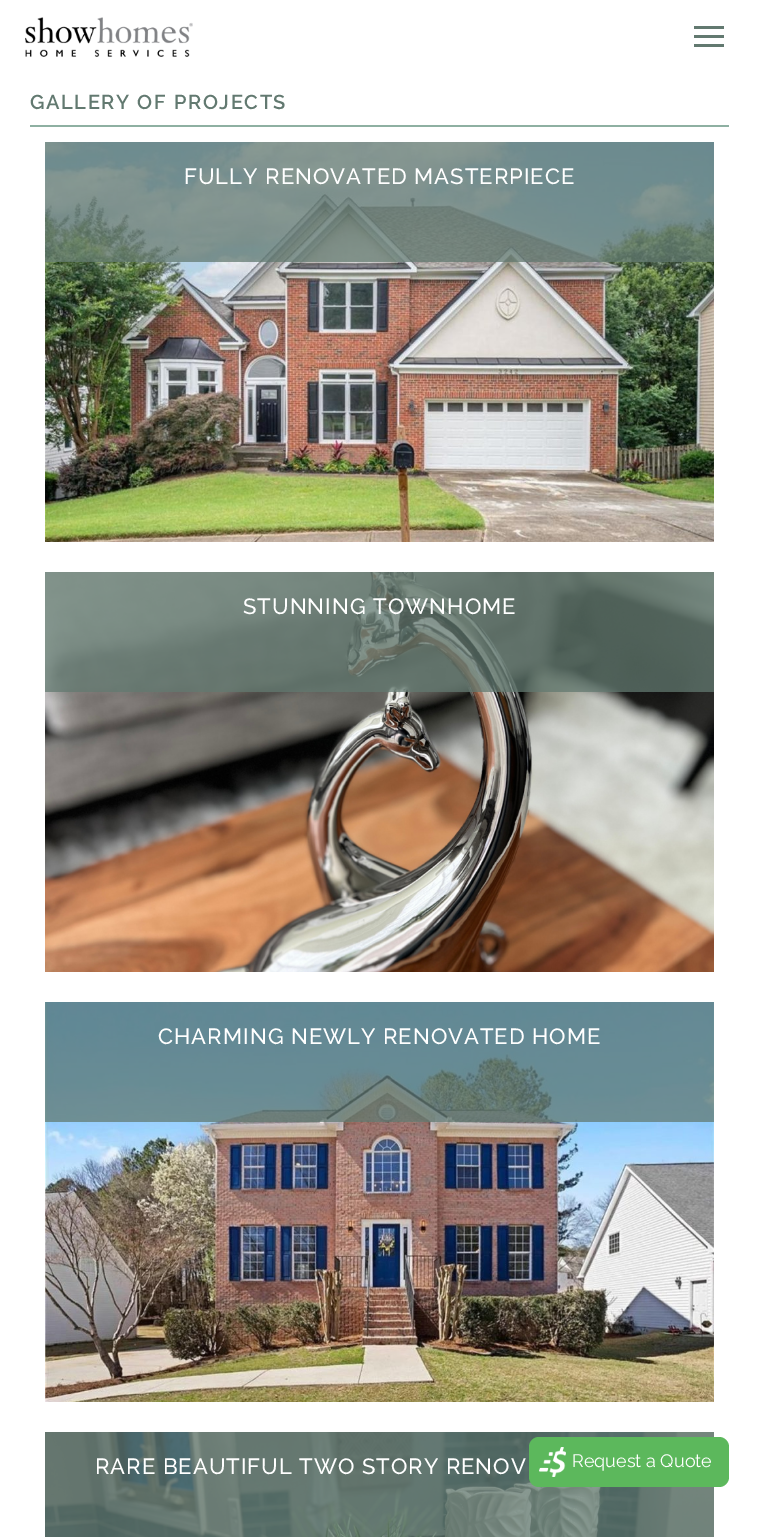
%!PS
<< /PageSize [759 1537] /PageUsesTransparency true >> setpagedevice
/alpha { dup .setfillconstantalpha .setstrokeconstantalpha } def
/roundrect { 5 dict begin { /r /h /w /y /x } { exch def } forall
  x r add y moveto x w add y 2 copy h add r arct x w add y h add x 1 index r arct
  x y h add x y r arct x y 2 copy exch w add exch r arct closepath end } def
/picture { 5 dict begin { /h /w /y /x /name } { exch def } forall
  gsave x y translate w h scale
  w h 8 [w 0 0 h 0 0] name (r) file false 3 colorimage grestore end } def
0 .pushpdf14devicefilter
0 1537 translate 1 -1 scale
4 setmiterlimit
1 setgray
0 0 759 1537 rectfill
(img1.rgb) 25 17 168 40 picture
0.384 0.475 0.439 setrgbcolor
694 26 30 3 rectfill
694 35 30 3 rectfill
694 44 30 3 rectfill
0.557 0.69 0.635 setrgbcolor
30 125 699 2 rectfill
/Raleway-SemiBold [20 0 0 -20 0 0] selectfont
0.384 0.475 0.439 setrgbcolor
30 109 moveto 1.6 0 (GALLERY OF PROJECTS) ashow
(img2.rgb) 45 142 669 400 picture
0.74 alpha
45 142 669 120 rectfill
/Raleway-Medium [22 0 0 -22 0 0] selectfont
1 alpha
1 setgray
184 184 moveto 1 0 (FULLY RENOVATED MASTERPIECE) ashow
(img3.rgb) 45 572 669 400 picture
0.74 alpha
0.384 0.475 0.439 setrgbcolor
45 572 669 120 rectfill
1 alpha
1 setgray
243 614 moveto 1 0 (STUNNING TOWNHOME) ashow
(img4.rgb) 45 1002 669 400 picture
0.74 alpha
0.384 0.475 0.439 setrgbcolor
45 1002 669 120 rectfill
1 alpha
1 setgray
158 1044 moveto 1 0 (CHARMING NEWLY RENOVATED HOME) ashow
(img5.rgb) 45 1432 669 105 picture
95 1474 moveto 1 0 (RARE BEAUTIFUL TWO STORY RENOV) ashow
0.361 0.722 0.361 setrgbcolor
529 1437 200 50 10 roundrect fill
(img6.rgb) 539 1447 27 30 picture
/Raleway-Regular [18 0 0 -18 0 0] selectfont
1 setgray
572 1467 moveto (Request a Quote) show
.poppdf14devicefilter showpage
